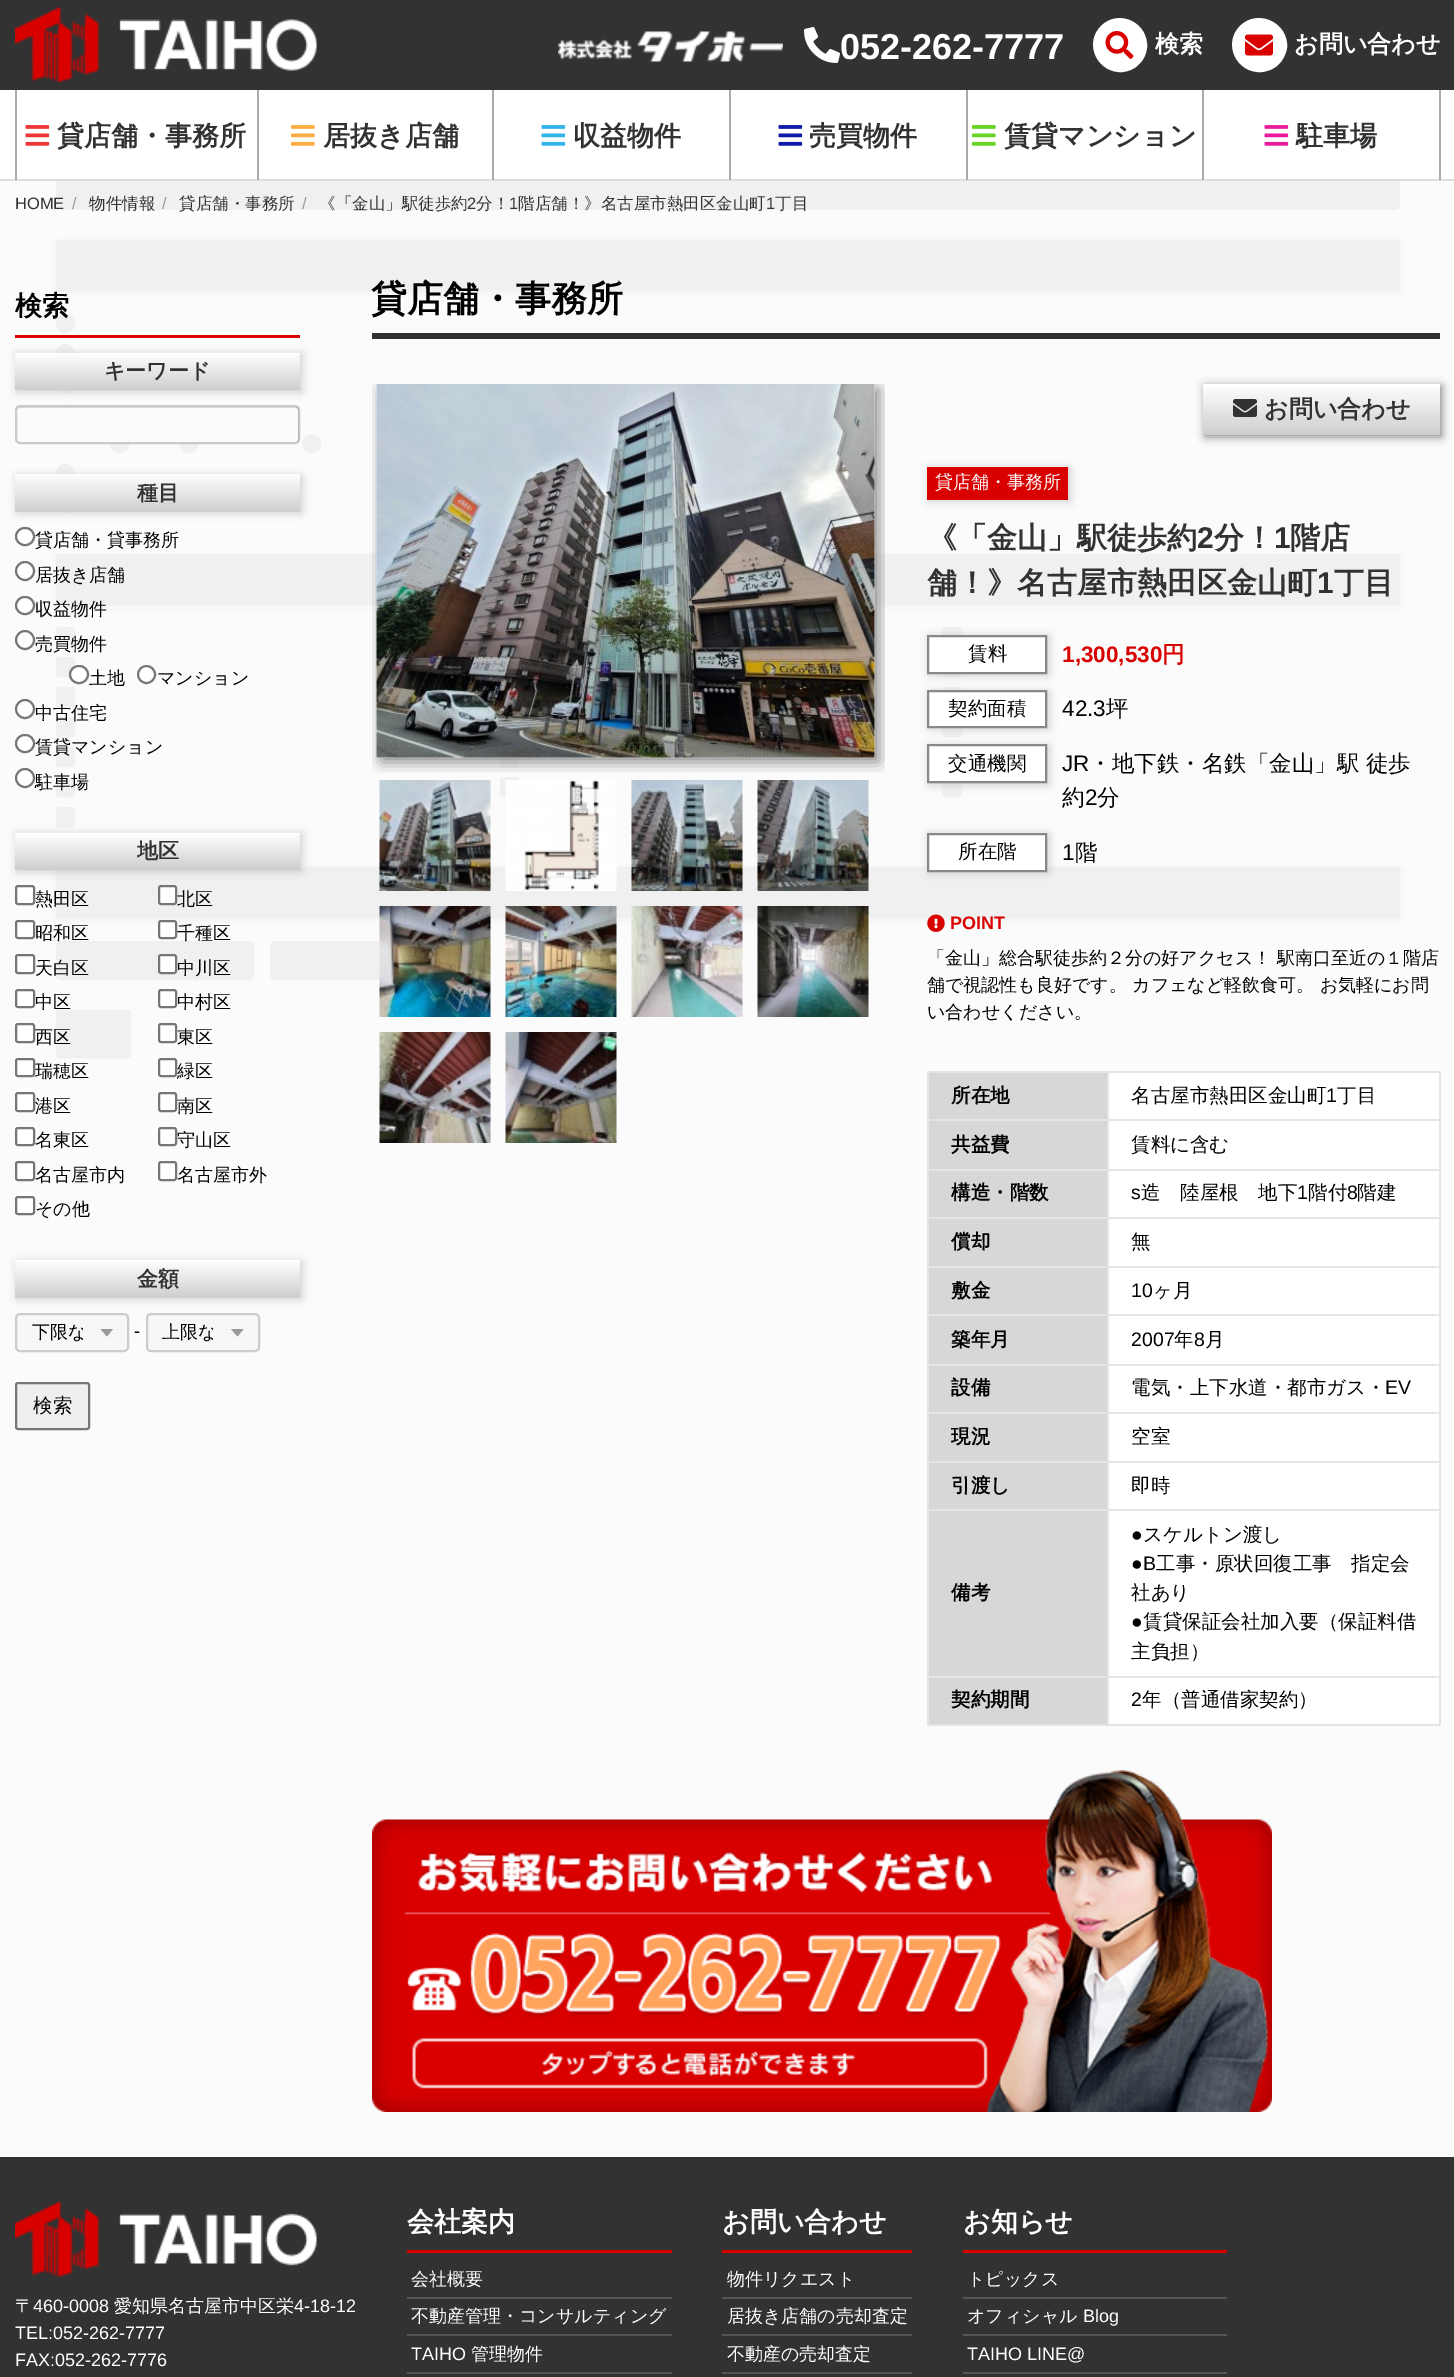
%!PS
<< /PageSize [1454 2377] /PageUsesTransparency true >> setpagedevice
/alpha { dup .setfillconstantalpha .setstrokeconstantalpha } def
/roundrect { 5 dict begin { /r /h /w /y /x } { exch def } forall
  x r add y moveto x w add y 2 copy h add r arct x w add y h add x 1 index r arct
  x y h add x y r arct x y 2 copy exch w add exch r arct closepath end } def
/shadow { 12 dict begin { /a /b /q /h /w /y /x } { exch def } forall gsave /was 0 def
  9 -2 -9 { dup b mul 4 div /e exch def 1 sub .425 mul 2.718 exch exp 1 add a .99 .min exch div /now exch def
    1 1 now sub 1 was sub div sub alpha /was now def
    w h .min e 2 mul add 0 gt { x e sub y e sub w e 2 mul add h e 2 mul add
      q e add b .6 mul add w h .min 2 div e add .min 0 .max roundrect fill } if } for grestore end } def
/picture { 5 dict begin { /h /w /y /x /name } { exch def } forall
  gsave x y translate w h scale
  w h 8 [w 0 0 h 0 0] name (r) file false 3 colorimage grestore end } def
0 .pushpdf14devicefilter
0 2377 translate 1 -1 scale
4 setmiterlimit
0.984 setgray
0 0 1454 2377 rectfill
0.196 setgray
0 0 1454 90 rectfill
(img1.rgb) 15 7 302 76 picture
(img2.rgb) 558 31 225 31 picture
(img3.rgb) 804 27 36 36 picture
/LiberationSans-Bold [36 0 0 -36 0 0] selectfont
1 setgray
840 59 moveto (052-262-7777) show
newpath 1101 26 moveto 1119 8 1149 23 1147 48 curveto 1146 54 1144 60 1139 64 curveto 1135 69 1129 71 1123 72 curveto 1098 74 1083 44 1101 26 curveto closepath fill
(img4.rgb) 1105 31 29 28 picture
/WenQuanYiZenHei-Bold [24 0 0 -24 0 0] selectfont
1155 52 moveto (検索) show
newpath 1240 26 moveto 1258 8 1289 23 1287 48 curveto 1286 54 1283 60 1279 64 curveto 1274 69 1269 71 1262 72 curveto 1237 74 1222 44 1240 26 curveto closepath fill
(img5.rgb) 1245 34 28 22 picture
1294 52 moveto (お問い合わせ) show
0.941 setgray
56 171 1344 39 5 roundrect fill
1 setgray
0 90 1454 89 rectfill
0.863 setgray
0 179 1454 2 rectfill
0.667 setgray
257 90 2 90 rectfill
15 90 2 90 rectfill
(img6.rgb) 25 125 25 21 picture
/WenQuanYiZenHei-Bold [27 0 0 -27 0 0] selectfont
0.196 setgray
57 145 moveto (貸店舗・事務所) show
0.667 setgray
492 90 2 90 rectfill
(img7.rgb) 291 125 24 21 picture
0.196 setgray
323 145 moveto (居抜き店舗) show
0.667 setgray
729 90 2 90 rectfill
(img8.rgb) 541 125 25 21 picture
0.196 setgray
573 145 moveto (収益物件) show
0.667 setgray
966 90 2 90 rectfill
(img9.rgb) 778 125 25 21 picture
0.196 setgray
809 145 moveto (売買物件) show
0.667 setgray
1202 90 2 90 rectfill
(img10.rgb) 972 125 24 21 picture
0.196 setgray
1004 145 moveto (賃貸マンション) show
0.667 setgray
1439 90 2 90 rectfill
(img11.rgb) 1264 125 25 21 picture
0.196 setgray
1296 145 moveto (駐車場) show
0.941 setgray
57 242 1344 51 0 4.5 1 shadow
gsave newpath 56 240 moveto 1400 240 lineto 1400 291 lineto 56 291 lineto closepath clip newpath
<< /ShadingType 2 /ColorSpace /DeviceRGB /Coords [728 240 728 291] /Extend [true true] /Function << /FunctionType 2 /Domain [0 1] /C0 [0.941 0.941 0.941] /C1 [0.941 0.941 0.941] /N 1 >> >> shfill grestore
newpath 65.5 323.5 8.5 0 360 arc closepath gsave fill grestore
2 setlinewidth
stroke
newpath 65.5 353.5 8.5 0 360 arc closepath gsave fill grestore
stroke
newpath 65.5 383.5 8.5 0 360 arc closepath gsave fill grestore
stroke
newpath 65.5 413.5 8.5 0 360 arc closepath stroke
newpath 119.5 443.5 8.5 0 360 arc closepath gsave fill grestore
stroke
newpath 188.5 443.5 8.5 0 360 arc closepath gsave fill grestore
stroke
newpath 311.5 443.5 8.5 0 360 arc closepath gsave fill grestore
stroke
newpath 65.5 473.5 8.5 0 360 arc closepath gsave fill grestore
stroke
newpath 65.5 503.5 8.5 0 360 arc closepath stroke
57 555 1344 51 0 4.5 1 shadow
gsave newpath 56 554 moveto 1400 554 lineto 1400 605 lineto 56 605 lineto closepath clip newpath
<< /ShadingType 2 /ColorSpace /DeviceRGB /Coords [728 553 728 605] /Extend [true true] /Function << /FunctionType 2 /Domain [0 1] /C0 [0.941 0.941 0.941] /C1 [0.941 0.941 0.941] /N 1 >> >> shfill grestore
57 628 17 18 2 roundrect gsave fill grestore
stroke
943 628 18 18 2 roundrect gsave fill grestore
stroke
57 658 17 18 2 roundrect gsave fill grestore
stroke
943 658 18 18 2 roundrect gsave fill grestore
stroke
57 688 17 18 2 roundrect gsave fill grestore
stroke
943 688 18 18 2 roundrect gsave fill grestore
stroke
57 718 17 18 2 roundrect gsave fill grestore
stroke
943 718 18 18 2 roundrect gsave fill grestore
stroke
57 748 17 18 2 roundrect gsave fill grestore
stroke
501 748 17 18 2 roundrect gsave fill grestore
stroke
57 778 17 18 2 roundrect gsave fill grestore
stroke
501 778 17 18 2 roundrect gsave fill grestore
stroke
943 778 18 18 2 roundrect gsave fill grestore
stroke
57 808 17 18 2 roundrect gsave fill grestore
stroke
57 869 1344 51 0 4.5 1 shadow
gsave newpath 56 867 moveto 1400 867 lineto 1400 918 lineto 56 918 lineto closepath clip newpath
<< /ShadingType 2 /ColorSpace /DeviceRGB /Coords [728 867 728 918] /Extend [true true] /Function << /FunctionType 2 /Domain [0 1] /C0 [0.941 0.941 0.941] /C1 [0.941 0.941 0.941] /N 1 >> >> shfill grestore
57 942 195 36 rectfill
57 942 196 37 4 roundrect stroke
272 943 108 35 rectfill
271 942 196 37 4 roundrect stroke
57 1011 73 46 2 roundrect gsave fill grestore
stroke
/LiberationSans-Regular [16.5 0 0 -16.5 0 0] selectfont
0.196 setgray
15 209 moveto (HOME) show
0.6 setgray
72 209 moveto (/) show
/WenQuanYiZenHei-Medium [16.5 0 0 -16.5 0 0] selectfont
0.196 setgray
89 209 moveto (物件情報) show
/LiberationSans-Regular [16.5 0 0 -16.5 0 0] selectfont
0.6 setgray
162 209 moveto (/) show
/WenQuanYiZenHei-Medium [16.5 0 0 -16.5 0 0] selectfont
0.196 setgray
179 209 moveto (貸店舗・事務所) show
/LiberationSans-Regular [16.5 0 0 -16.5 0 0] selectfont
0.6 setgray
302 209 moveto (/) show
/WenQuanYiZenHei-Medium [16.5 0 0 -16.5 0 0] selectfont
0.196 setgray
319 209 moveto (《「金山」駅徒歩約) show
/LiberationSans-Regular [16.5 0 0 -16.5 0 0] selectfont
467 209 moveto (2) show
/WenQuanYiZenHei-Medium [16.5 0 0 -16.5 0 0] selectfont
476 209 moveto (分！) show
/LiberationSans-Regular [16.5 0 0 -16.5 0 0] selectfont
509 209 moveto (1) show
/WenQuanYiZenHei-Medium [16.5 0 0 -16.5 0 0] selectfont
518 209 moveto (階店舗！》名古屋市熱田区金山町) show
/LiberationSans-Regular [16.5 0 0 -16.5 0 0] selectfont
766 209 moveto (1) show
/WenQuanYiZenHei-Medium [16.5 0 0 -16.5 0 0] selectfont
775 209 moveto (丁目) show
0.851 0 0 setrgbcolor
15 335 285 3 rectfill
/WenQuanYiZenHei-Bold [27 0 0 -27 0 0] selectfont
0 setgray
15 315 moveto (検索) show
0.8 setgray
17 354 285 38 0 4.5 1 shadow
gsave newpath 15 353 moveto 300 353 lineto 300 390 lineto 15 390 lineto closepath clip newpath
<< /ShadingType 2 /ColorSpace /DeviceRGB /Coords [158 353 158 390] /Extend [true true] /Function << /FunctionType 2 /Domain [0 1] /C0 [1 1 1] /C1 [0.808 0.808 0.808] /N 1 >> >> shfill grestore
/WenQuanYiZenHei-Bold [21 0 0 -21 0 0] selectfont
0.196 setgray
104 378 moveto (キーワード) show
0.984 setgray
15 405 285 39 5 roundrect fill
0.886 setgray
newpath 20 408 moveto 296 408 lineto 300 408 298 420 298 421 curveto 298 442 lineto 299 442 299 441 299 440 curveto 299 410 lineto 299 408 298 407 296 407 curveto 20 407 lineto 19 407 18 408 17 409 curveto closepath fill
0.2 alpha
0 setgray
16 406 283 37 4 roundrect stroke
1 alpha
0.8 setgray
17 476 285 37 0 4.5 1 shadow
gsave newpath 15 474 moveto 300 474 lineto 300 512 lineto 15 512 lineto closepath clip newpath
<< /ShadingType 2 /ColorSpace /DeviceRGB /Coords [158 474 158 512] /Extend [true true] /Function << /FunctionType 2 /Domain [0 1] /C0 [1 1 1] /C1 [0.808 0.808 0.808] /N 1 >> >> shfill grestore
0.196 setgray
137 500 moveto (種目) show
1 setgray
16 528 18 17 8.5 roundrect gsave fill grestore
0.463 setgray
stroke
/WenQuanYiZenHei-Medium [18 0 0 -18 0 0] selectfont
0 setgray
35 546 moveto (貸店舗・貸事務所) show
1 setgray
newpath 25 571 9 0 360 arc closepath gsave fill grestore
0.463 setgray
stroke
0 setgray
35 581 moveto (居抜き店舗) show
1 setgray
16 597 18 17 8.5 roundrect gsave fill grestore
0.463 setgray
stroke
0 setgray
35 615 moveto (収益物件) show
1 setgray
newpath 25 640 9 0 360 arc closepath gsave fill grestore
0.463 setgray
stroke
0 setgray
35 650 moveto (売買物件) show
1 setgray
70 666 18 17 8.5 roundrect gsave fill grestore
0.463 setgray
stroke
0 setgray
89 684 moveto (土地) show
1 setgray
newpath 146.5 674.5 8.5 0 360 arc closepath gsave fill grestore
0.463 setgray
stroke
0 setgray
157 684 moveto (マンション) show
1 setgray
newpath 25 709 9 0 360 arc closepath gsave fill grestore
0.463 setgray
stroke
0 setgray
35 719 moveto (中古住宅) show
1 setgray
16 735 18 17 8.5 roundrect gsave fill grestore
0.463 setgray
stroke
0 setgray
35 753 moveto (賃貸マンション) show
1 setgray
newpath 25 778 9 0 360 arc closepath gsave fill grestore
0.463 setgray
stroke
0 setgray
35 788 moveto (駐車場) show
0.8 setgray
17 834 285 38 0 4.5 1 shadow
gsave newpath 15 833 moveto 300 833 lineto 300 870 lineto 15 870 lineto closepath clip newpath
<< /ShadingType 2 /ColorSpace /DeviceRGB /Coords [158 833 158 870] /Extend [true true] /Function << /FunctionType 2 /Domain [0 1] /C0 [1 1 1] /C1 [0.808 0.808 0.808] /N 1 >> >> shfill grestore
/WenQuanYiZenHei-Bold [21 0 0 -21 0 0] selectfont
0.196 setgray
137 858 moveto (地区) show
1 setgray
16 886 18 18 2 roundrect gsave fill grestore
0.463 setgray
stroke
/WenQuanYiZenHei-Medium [18 0 0 -18 0 0] selectfont
0 setgray
35 905 moveto (熱田区) show
1 setgray
159 886 17 18 2 roundrect gsave fill grestore
0.463 setgray
stroke
0 setgray
177 905 moveto (北区) show
1 setgray
16 921 18 17 2 roundrect gsave fill grestore
0.463 setgray
stroke
0 setgray
35 939 moveto (昭和区) show
1 setgray
159 921 17 17 2 roundrect gsave fill grestore
0.463 setgray
stroke
0 setgray
177 939 moveto (千種区) show
1 setgray
16 955 18 18 2 roundrect gsave fill grestore
0.463 setgray
stroke
0 setgray
35 974 moveto (天白区) show
1 setgray
159 955 17 18 2 roundrect gsave fill grestore
0.463 setgray
stroke
0 setgray
177 974 moveto (中川区) show
1 setgray
16 990 18 17 2 roundrect gsave fill grestore
0.463 setgray
stroke
0 setgray
35 1008 moveto (中区) show
1 setgray
159 990 17 17 2 roundrect gsave fill grestore
0.463 setgray
stroke
0 setgray
177 1008 moveto (中村区) show
1 setgray
16 1024 18 18 2 roundrect gsave fill grestore
0.463 setgray
stroke
0 setgray
35 1043 moveto (西区) show
1 setgray
159 1024 17 18 2 roundrect gsave fill grestore
0.463 setgray
stroke
0 setgray
177 1043 moveto (東区) show
1 setgray
16 1059 18 17 2 roundrect gsave fill grestore
0.463 setgray
stroke
0 setgray
35 1077 moveto (瑞穂区) show
1 setgray
159 1059 17 17 2 roundrect gsave fill grestore
0.463 setgray
stroke
0 setgray
177 1077 moveto (緑区) show
1 setgray
16 1093 18 18 2 roundrect gsave fill grestore
0.463 setgray
stroke
0 setgray
35 1112 moveto (港区) show
1 setgray
159 1093 17 18 2 roundrect gsave fill grestore
0.463 setgray
stroke
0 setgray
177 1112 moveto (南区) show
1 setgray
16 1128 18 17 2 roundrect gsave fill grestore
0.463 setgray
stroke
0 setgray
35 1146 moveto (名東区) show
1 setgray
159 1128 17 17 2 roundrect gsave fill grestore
0.463 setgray
stroke
0 setgray
177 1146 moveto (守山区) show
1 setgray
16 1162 18 18 2 roundrect gsave fill grestore
0.463 setgray
stroke
0 setgray
35 1181 moveto (名古屋市内) show
1 setgray
159 1162 17 18 2 roundrect gsave fill grestore
0.463 setgray
stroke
0 setgray
177 1181 moveto (名古屋市外) show
1 setgray
16 1197 18 17 2 roundrect gsave fill grestore
0.463 setgray
stroke
0 setgray
35 1215 moveto (その他) show
0.8 setgray
17 1262 285 37 0 4.5 1 shadow
gsave newpath 15 1260 moveto 300 1260 lineto 300 1298 lineto 15 1298 lineto closepath clip newpath
<< /ShadingType 2 /ColorSpace /DeviceRGB /Coords [158 1260 158 1298] /Extend [true true] /Function << /FunctionType 2 /Domain [0 1] /C0 [1 1 1] /C1 [0.808 0.808 0.808] /N 1 >> >> shfill grestore
/WenQuanYiZenHei-Bold [21 0 0 -21 0 0] selectfont
0.196 setgray
137 1286 moveto (金額) show
0.969 setgray
17 1314 111 36 rectfill
0.6 setgray
newpath 107 1329 moveto 113 1329 lineto 107 1336.5 lineto 100.5 1329 lineto closepath fill
0.8 setgray
16 1314 112 37 4 roundrect stroke
gsave
32 1322 51 22 rectclip
/WenQuanYiZenHei-Medium [18 0 0 -18 0 0] selectfont
0 setgray
32 1338 moveto (下限な) show
grestore
/LiberationSans-Regular [18 0 0 -18 0 0] selectfont
0 setgray
134 1337 moveto (-) show
0.969 setgray
147 1314 111 36 rectfill
0.6 setgray
newpath 237.5 1329 moveto 243.5 1329 lineto 237.5 1336.5 lineto 231 1329 lineto closepath fill
0.8 setgray
147 1314 112 37 4 roundrect stroke
gsave
162 1322 51 22 rectclip
/WenQuanYiZenHei-Medium [18 0 0 -18 0 0] selectfont
0 setgray
162 1338 moveto (上限な) show
grestore
0.937 setgray
16 1383 73 46 2 roundrect gsave fill grestore
0.463 setgray
stroke
/WenQuanYiZenHei-Medium [19.5 0 0 -19.5 0 0] selectfont
0 setgray
33 1412 moveto (検索) show
0.196 setgray
372 333 1068 6 rectfill
/WenQuanYiZenHei-Bold [36 0 0 -36 0 0] selectfont
0 setgray
371 311 moveto (貸店舗・事務所) show
gsave
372 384 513 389 rectclip
0.533 setgray
381 389 498 373 0 7.5 1 shadow
grestore
(img12.rgb) 376 384 499 374 picture
(img13.rgb) 379 780 112 111 picture
(img14.rgb) 505 780 112 111 picture
(img15.rgb) 631 780 112 111 picture
(img16.rgb) 757 780 112 111 picture
(img17.rgb) 379 906 112 111 picture
(img18.rgb) 505 906 112 111 picture
(img19.rgb) 631 906 112 111 picture
(img20.rgb) 757 906 112 111 picture
(img21.rgb) 379 1032 112 111 picture
(img22.rgb) 505 1032 112 111 picture
0.533 setgray
1205 386 237 51 0 4.5 1 shadow
gsave newpath 1203 384 moveto 1440 384 lineto 1440 435 lineto 1203 435 lineto closepath clip newpath
<< /ShadingType 2 /ColorSpace /DeviceRGB /Coords [1322 384 1322 435] /Extend [true true] /Function << /FunctionType 2 /Domain [0 1] /C0 [1 1 1] /C1 [0.808 0.808 0.808] /N 1 >> >> shfill grestore
(img23.rgb) 1233 399 24 18 picture
/WenQuanYiZenHei-Bold [24 0 0 -24 0 0] selectfont
0.196 setgray
1264 417 moveto (お問い合わせ) show
0.8 setgray
929 468 141 33 0 4.5 1 shadow
0.851 0 0 setrgbcolor
927 467 141 33 rectfill
/WenQuanYiZenHei-Medium [18 0 0 -18 0 0] selectfont
1 setgray
935 488 moveto (貸店舗・事務所) show
/WenQuanYiZenHei-Bold [30 0 0 -30 0 0] selectfont
0.196 setgray
927 548 moveto (《「金山」駅徒歩約) show
/LiberationSans-Bold [30 0 0 -30 0 0] selectfont
1197 548 moveto (2) show
/WenQuanYiZenHei-Bold [30 0 0 -30 0 0] selectfont
1214 548 moveto (分！) show
/LiberationSans-Bold [30 0 0 -30 0 0] selectfont
1274 548 moveto (1) show
/WenQuanYiZenHei-Bold [30 0 0 -30 0 0] selectfont
1290 548 moveto (階店) show
927 593 moveto (舗！》名古屋市熱田区金山町) show
/LiberationSans-Bold [30 0 0 -30 0 0] selectfont
1317 593 moveto (1) show
/WenQuanYiZenHei-Bold [30 0 0 -30 0 0] selectfont
1334 593 moveto (丁目) show
0.8 setgray
929 636 120 39 0 4.5 1 shadow
1 setgray
newpath 928 636 moveto 1046 636 lineto 1046 673 lineto 928 673 lineto closepath gsave fill grestore
0.533 setgray
stroke
/WenQuanYiZenHei-Medium [19.5 0 0 -19.5 0 0] selectfont
0 setgray
968 660 moveto (賃料) show
/LiberationSans-Bold [22.5 0 0 -22.5 0 0] selectfont
0.851 0 0 setrgbcolor
1062 662 moveto (1,300,530) show
/WenQuanYiZenHei-Bold [22.5 0 0 -22.5 0 0] selectfont
1162 662 moveto (円) show
0.8 setgray
929 692 120 37 0 4.5 1 shadow
1 setgray
newpath 928 691 moveto 1046 691 lineto 1046 727 lineto 928 727 lineto closepath gsave fill grestore
0.533 setgray
stroke
/WenQuanYiZenHei-Medium [19.5 0 0 -19.5 0 0] selectfont
0 setgray
948 715 moveto (契約面積) show
/LiberationSans-Regular [22.5 0 0 -22.5 0 0] selectfont
1062 716 moveto (42.3) show
/WenQuanYiZenHei-Medium [22.5 0 0 -22.5 0 0] selectfont
1106 716 moveto (坪) show
0.8 setgray
929 746 120 39 0 4.5 1 shadow
1 setgray
newpath 928 745 moveto 1046 745 lineto 1046 782 lineto 928 782 lineto closepath gsave fill grestore
0.533 setgray
stroke
/WenQuanYiZenHei-Medium [19.5 0 0 -19.5 0 0] selectfont
0 setgray
948 770 moveto (交通機関) show
/LiberationSans-Regular [22.5 0 0 -22.5 0 0] selectfont
1062 771 moveto (JR) show
/WenQuanYiZenHei-Medium [22.5 0 0 -22.5 0 0] selectfont
1089 771 moveto (・地下鉄・名鉄「金山」駅 徒歩) show
1062 805 moveto (約) show
/LiberationSans-Regular [22.5 0 0 -22.5 0 0] selectfont
1085 805 moveto (2) show
/WenQuanYiZenHei-Medium [22.5 0 0 -22.5 0 0] selectfont
1097 805 moveto (分) show
0.8 setgray
929 834 120 39 0 4.5 1 shadow
1 setgray
newpath 928 834 moveto 1046 834 lineto 1046 871 lineto 928 871 lineto closepath gsave fill grestore
0.533 setgray
stroke
/WenQuanYiZenHei-Medium [19.5 0 0 -19.5 0 0] selectfont
0 setgray
958 858 moveto (所在階) show
/LiberationSans-Regular [22.5 0 0 -22.5 0 0] selectfont
1062 860 moveto (1) show
/WenQuanYiZenHei-Medium [22.5 0 0 -22.5 0 0] selectfont
1075 860 moveto (階) show
(img24.rgb) 927 914 18 18 picture
/LiberationSans-Bold [18 0 0 -18 0 0] selectfont
0.851 0 0 setrgbcolor
950 929 moveto (POINT) show
/WenQuanYiZenHei-Medium [18 0 0 -18 0 0] selectfont
0 setgray
927 964 moveto (「金山」総合駅徒歩約２分の好アクセス！ 駅南口至近の１階店) show
927 991 moveto (舗で視認性も良好です。 カフェなど軽飲食可。 お気軽にお問) show
927 1018 moveto (い合わせください。) show
1 setgray
1109 1073 330 651 rectfill
0.898 setgray
927 1071 513 2 rectfill
1439 1071 2 654 rectfill
927 1724 513 2 rectfill
927 1071 2 654 rectfill
0.843 setgray
929 1073 178 46 rectfill
/WenQuanYiZenHei-Bold [19.5 0 0 -19.5 0 0] selectfont
0 setgray
951 1102 moveto (所在地) show
0.898 setgray
1107 1119 333 2 rectfill
1107 1169 333 2 rectfill
1107 1217 333 2 rectfill
1107 1266 333 2 rectfill
1107 1314 333 2 rectfill
1107 1364 333 2 rectfill
1107 1412 333 2 rectfill
1107 1461 333 2 rectfill
1107 1509 333 2 rectfill
1107 1676 333 2 rectfill
1107 1676 2 49 rectfill
927 1676 182 2 rectfill
1107 1509 2 168 rectfill
927 1509 182 2 rectfill
1107 1461 2 50 rectfill
927 1461 182 2 rectfill
1107 1412 2 51 rectfill
927 1412 182 2 rectfill
1107 1364 2 49 rectfill
927 1364 182 2 rectfill
1107 1314 2 51 rectfill
927 1314 182 2 rectfill
1107 1266 2 50 rectfill
927 1266 182 2 rectfill
1107 1217 2 51 rectfill
927 1217 182 2 rectfill
1107 1169 2 49 rectfill
927 1169 182 2 rectfill
1107 1119 2 51 rectfill
927 1119 182 2 rectfill
1107 1071 2 50 rectfill
/WenQuanYiZenHei-Medium [19.5 0 0 -19.5 0 0] selectfont
0 setgray
1131 1102 moveto (名古屋市熱田区金山町) show
/LiberationSans-Regular [19.5 0 0 -19.5 0 0] selectfont
1326 1102 moveto (1) show
/WenQuanYiZenHei-Medium [19.5 0 0 -19.5 0 0] selectfont
1337 1102 moveto (丁目) show
0.843 setgray
929 1121 178 48 rectfill
/WenQuanYiZenHei-Bold [19.5 0 0 -19.5 0 0] selectfont
0 setgray
951 1151 moveto (共益費) show
/WenQuanYiZenHei-Medium [19.5 0 0 -19.5 0 0] selectfont
1131 1151 moveto (賃料に含む) show
0.843 setgray
929 1171 178 46 rectfill
/WenQuanYiZenHei-Bold [19.5 0 0 -19.5 0 0] selectfont
0 setgray
951 1199 moveto (構造・階数) show
/LiberationSans-Regular [19.5 0 0 -19.5 0 0] selectfont
1131 1199 moveto (s) show
/WenQuanYiZenHei-Medium [19.5 0 0 -19.5 0 0] selectfont
1141 1199 moveto (造　陸屋根　地下) show
/LiberationSans-Regular [19.5 0 0 -19.5 0 0] selectfont
1297 1199 moveto (1) show
/WenQuanYiZenHei-Medium [19.5 0 0 -19.5 0 0] selectfont
1308 1199 moveto (階付) show
/LiberationSans-Regular [19.5 0 0 -19.5 0 0] selectfont
1347 1199 moveto (8) show
/WenQuanYiZenHei-Medium [19.5 0 0 -19.5 0 0] selectfont
1357 1199 moveto (階建) show
0.843 setgray
929 1219 178 47 rectfill
/WenQuanYiZenHei-Bold [19.5 0 0 -19.5 0 0] selectfont
0 setgray
951 1248 moveto (償却) show
/WenQuanYiZenHei-Medium [19.5 0 0 -19.5 0 0] selectfont
1131 1248 moveto (無) show
0.843 setgray
929 1268 178 46 rectfill
/WenQuanYiZenHei-Bold [19.5 0 0 -19.5 0 0] selectfont
0 setgray
951 1297 moveto (敷金) show
/LiberationSans-Regular [19.5 0 0 -19.5 0 0] selectfont
1131 1297 moveto (10) show
/WenQuanYiZenHei-Medium [19.5 0 0 -19.5 0 0] selectfont
1153 1297 moveto (ヶ月) show
0.843 setgray
929 1316 178 48 rectfill
/WenQuanYiZenHei-Bold [19.5 0 0 -19.5 0 0] selectfont
0 setgray
951 1346 moveto (築年月) show
/LiberationSans-Regular [19.5 0 0 -19.5 0 0] selectfont
1131 1346 moveto (2007) show
/WenQuanYiZenHei-Medium [19.5 0 0 -19.5 0 0] selectfont
1174 1346 moveto (年) show
/LiberationSans-Regular [19.5 0 0 -19.5 0 0] selectfont
1194 1346 moveto (8) show
/WenQuanYiZenHei-Medium [19.5 0 0 -19.5 0 0] selectfont
1205 1346 moveto (月) show
0.843 setgray
929 1366 178 46 rectfill
/WenQuanYiZenHei-Bold [19.5 0 0 -19.5 0 0] selectfont
0 setgray
951 1394 moveto (設備) show
/WenQuanYiZenHei-Medium [19.5 0 0 -19.5 0 0] selectfont
1131 1394 moveto (電気・上下水道・都市ガス・) show
/LiberationSans-Regular [19.5 0 0 -19.5 0 0] selectfont
1385 1394 moveto (EV) show
0.843 setgray
929 1414 178 47 rectfill
/WenQuanYiZenHei-Bold [19.5 0 0 -19.5 0 0] selectfont
0 setgray
951 1443 moveto (現況) show
/WenQuanYiZenHei-Medium [19.5 0 0 -19.5 0 0] selectfont
1131 1443 moveto (空室) show
0.843 setgray
929 1463 178 46 rectfill
/WenQuanYiZenHei-Bold [19.5 0 0 -19.5 0 0] selectfont
0 setgray
951 1492 moveto (引渡し) show
/WenQuanYiZenHei-Medium [19.5 0 0 -19.5 0 0] selectfont
1131 1492 moveto (即時) show
0.843 setgray
929 1511 178 165 rectfill
/WenQuanYiZenHei-Bold [19.5 0 0 -19.5 0 0] selectfont
0 setgray
951 1599 moveto (備考) show
/LiberationSans-Regular [19.5 0 0 -19.5 0 0] selectfont
1131 1541 moveto (●) show
/WenQuanYiZenHei-Medium [19.5 0 0 -19.5 0 0] selectfont
1143 1541 moveto (スケルトン渡し) show
/LiberationSans-Regular [19.5 0 0 -19.5 0 0] selectfont
1131 1570 moveto (●B) show
/WenQuanYiZenHei-Medium [19.5 0 0 -19.5 0 0] selectfont
1156 1570 moveto (工事・原状回復工事　指定会) show
1131 1599 moveto (社あり) show
/LiberationSans-Regular [19.5 0 0 -19.5 0 0] selectfont
1131 1628 moveto (●) show
/WenQuanYiZenHei-Medium [19.5 0 0 -19.5 0 0] selectfont
1143 1628 moveto (賃貸保証会社加入要（保証料借) show
1131 1658 moveto (主負担）) show
0.843 setgray
929 1678 178 46 rectfill
/WenQuanYiZenHei-Bold [19.5 0 0 -19.5 0 0] selectfont
0 setgray
951 1706 moveto (契約期間) show
/LiberationSans-Regular [19.5 0 0 -19.5 0 0] selectfont
1131 1706 moveto (2) show
/WenQuanYiZenHei-Medium [19.5 0 0 -19.5 0 0] selectfont
1142 1706 moveto (年（普通借家契約）) show
(img25.rgb) 372 1770 900 342 picture
0.196 setgray
0 2157 1454 220 rectfill
(img26.rgb) 15 2202 302 75 picture
/WenQuanYiZenHei-Medium [18 0 0 -18 0 0] selectfont
1 setgray
15 2312 moveto (〒) show
/LiberationSans-Regular [18 0 0 -18 0 0] selectfont
33 2312 moveto (460-0008) show
/WenQuanYiZenHei-Medium [18 0 0 -18 0 0] selectfont
114 2312 moveto (愛知県名古屋市中区栄) show
/LiberationSans-Regular [18 0 0 -18 0 0] selectfont
294 2312 moveto (4-18-12) show
15 2339 moveto (TEL:052-262-7777) show
15 2366 moveto (FAX:052-262-7776) show
0.851 0 0 setrgbcolor
407 2250 265 3 rectfill
/WenQuanYiZenHei-Bold [27 0 0 -27 0 0] selectfont
1 setgray
407 2231 moveto (会社案内) show
0.333 setgray
407 2297 265 2 rectfill
/WenQuanYiZenHei-Medium [18 0 0 -18 0 0] selectfont
1 setgray
411 2285 moveto (会社概要) show
0.333 setgray
407 2334 265 2 rectfill
1 setgray
411 2322 moveto (不動産管理・コンサルティング) show
0.333 setgray
407 2372 265 2 rectfill
/LiberationSans-Regular [18 0 0 -18 0 0] selectfont
1 setgray
411 2360 moveto (TAIHO) show
/WenQuanYiZenHei-Medium [18 0 0 -18 0 0] selectfont
471 2360 moveto (管理物件) show
0.851 0 0 setrgbcolor
722 2250 190 3 rectfill
/WenQuanYiZenHei-Bold [27 0 0 -27 0 0] selectfont
1 setgray
722 2231 moveto (お問い合わせ) show
0.333 setgray
722 2297 190 2 rectfill
/WenQuanYiZenHei-Medium [18 0 0 -18 0 0] selectfont
1 setgray
727 2285 moveto (物件リクエスト) show
0.333 setgray
722 2334 190 2 rectfill
1 setgray
727 2322 moveto (居抜き店舗の売却査定) show
0.333 setgray
722 2372 190 2 rectfill
1 setgray
727 2360 moveto (不動産の売却査定) show
0.851 0 0 setrgbcolor
963 2250 264 3 rectfill
/WenQuanYiZenHei-Bold [27 0 0 -27 0 0] selectfont
1 setgray
963 2231 moveto (お知らせ) show
0.333 setgray
963 2297 264 2 rectfill
/WenQuanYiZenHei-Medium [18 0 0 -18 0 0] selectfont
1 setgray
967 2285 moveto (トピックス) show
0.333 setgray
963 2334 264 2 rectfill
1 setgray
967 2322 moveto (オフィシャル) show
/LiberationSans-Regular [18 0 0 -18 0 0] selectfont
1083 2322 moveto (Blog) show
0.333 setgray
963 2372 264 2 rectfill
1 setgray
967 2360 moveto (TAIHO LINE@) show
.poppdf14devicefilter showpage
